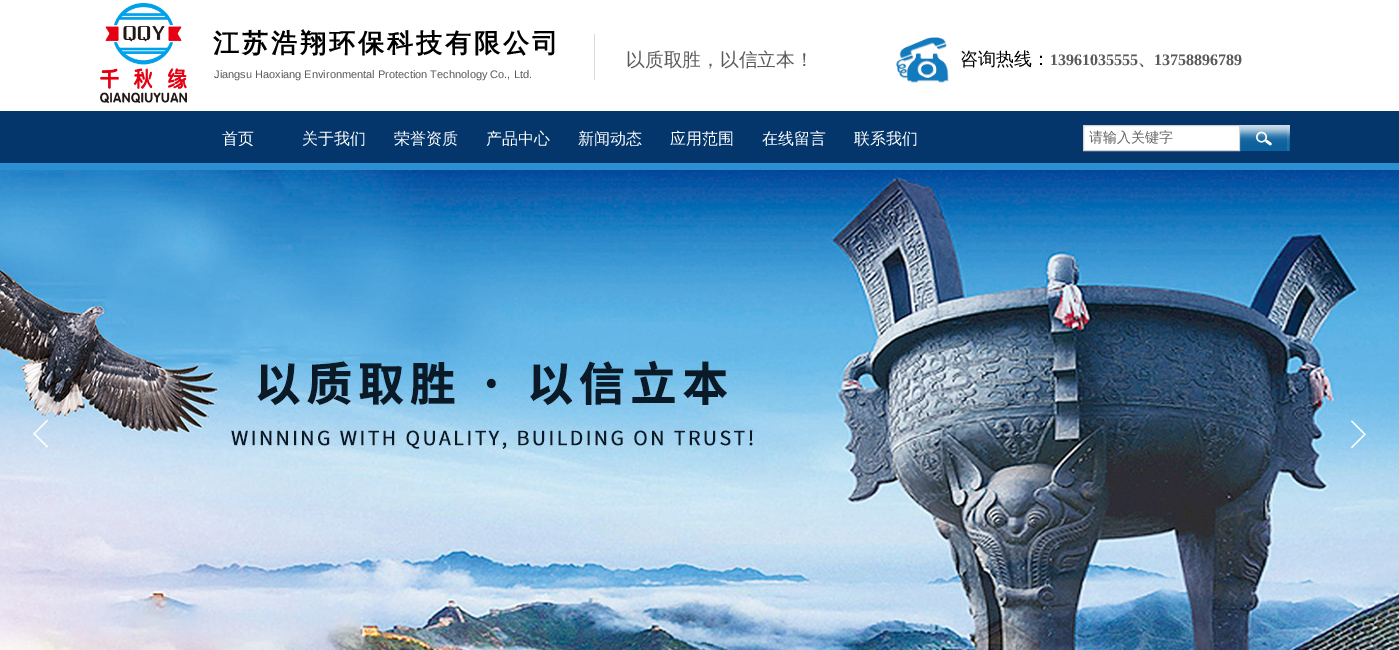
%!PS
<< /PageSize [1399 650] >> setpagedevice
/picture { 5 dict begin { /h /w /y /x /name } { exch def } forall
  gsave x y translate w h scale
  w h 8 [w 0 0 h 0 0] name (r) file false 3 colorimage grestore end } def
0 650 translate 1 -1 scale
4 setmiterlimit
1 setgray
0 0 1399 650 rectfill
(img1.rgb) 100 3 87 100 picture
/WenQuanYiZenHei-Bold [26 0 0 -26 0 0] selectfont
0 setgray
213 52 moveto 3 0 (江苏浩翔环保科技有限公司) ashow
0.851 setgray
594 34 1 46 rectfill
/WenQuanYiZenHei-Medium [18.75 0 0 -18.75 0 0] selectfont
0.353 setgray
626 66 moveto (以质取胜，以信立本！) show
(img2.rgb) 895 37 54 46 picture
/WenQuanYiZenHei-Medium [18 0 0 -18 0 0] selectfont
0 setgray
960 65 moveto (咨询热线：) show
/LiberationSerif-Bold [16 0 0 -16 0 0] selectfont
0.353 setgray
1050 65 moveto (13961035555) show
/WenQuanYiZenHei-Bold [16 0 0 -16 0 0] selectfont
1138 65 moveto (、) show
/LiberationSerif-Bold [16 0 0 -16 0 0] selectfont
1154 65 moveto (13758896789) show
/LiberationSans-Regular [11 0 0 -11 0 0] selectfont
214 78 moveto (Jiangsu Haoxiang Environmental Protection Technology Co., Ltd.) show
0.016 0.212 0.424 setrgbcolor
0 111 1399 52 rectfill
/WenQuanYiZenHei-Medium [16 0 0 -16 0 0] selectfont
1 setgray
222 144 moveto (首页) show
302 144 moveto (关于我们) show
394 144 moveto (荣誉资质) show
486 144 moveto (产品中心) show
578 144 moveto (新闻动态) show
670 144 moveto (应用范围) show
762 144 moveto (在线留言) show
854 144 moveto (联系我们) show
newpath 1083.5 125.5 moveto 1239.5 125.5 lineto 1239.5 150.5 lineto 1083.5 150.5 lineto closepath gsave fill grestore
0.827 setgray
stroke
/WenQuanYiZenHei-Medium [14 0 0 -14 0 0] selectfont
0.4 setgray
1089 142 moveto (请输入关键字) show
(img3.rgb) 1240 125 50 26 picture
0.173 0.561 0.824 setrgbcolor
0 163 1399 7 rectfill
(img4.rgb) 0 170 1399 480 picture
(img5.rgb) 33 419 15 29 picture
(img6.rgb) 1350 420 17 29 picture
showpage
